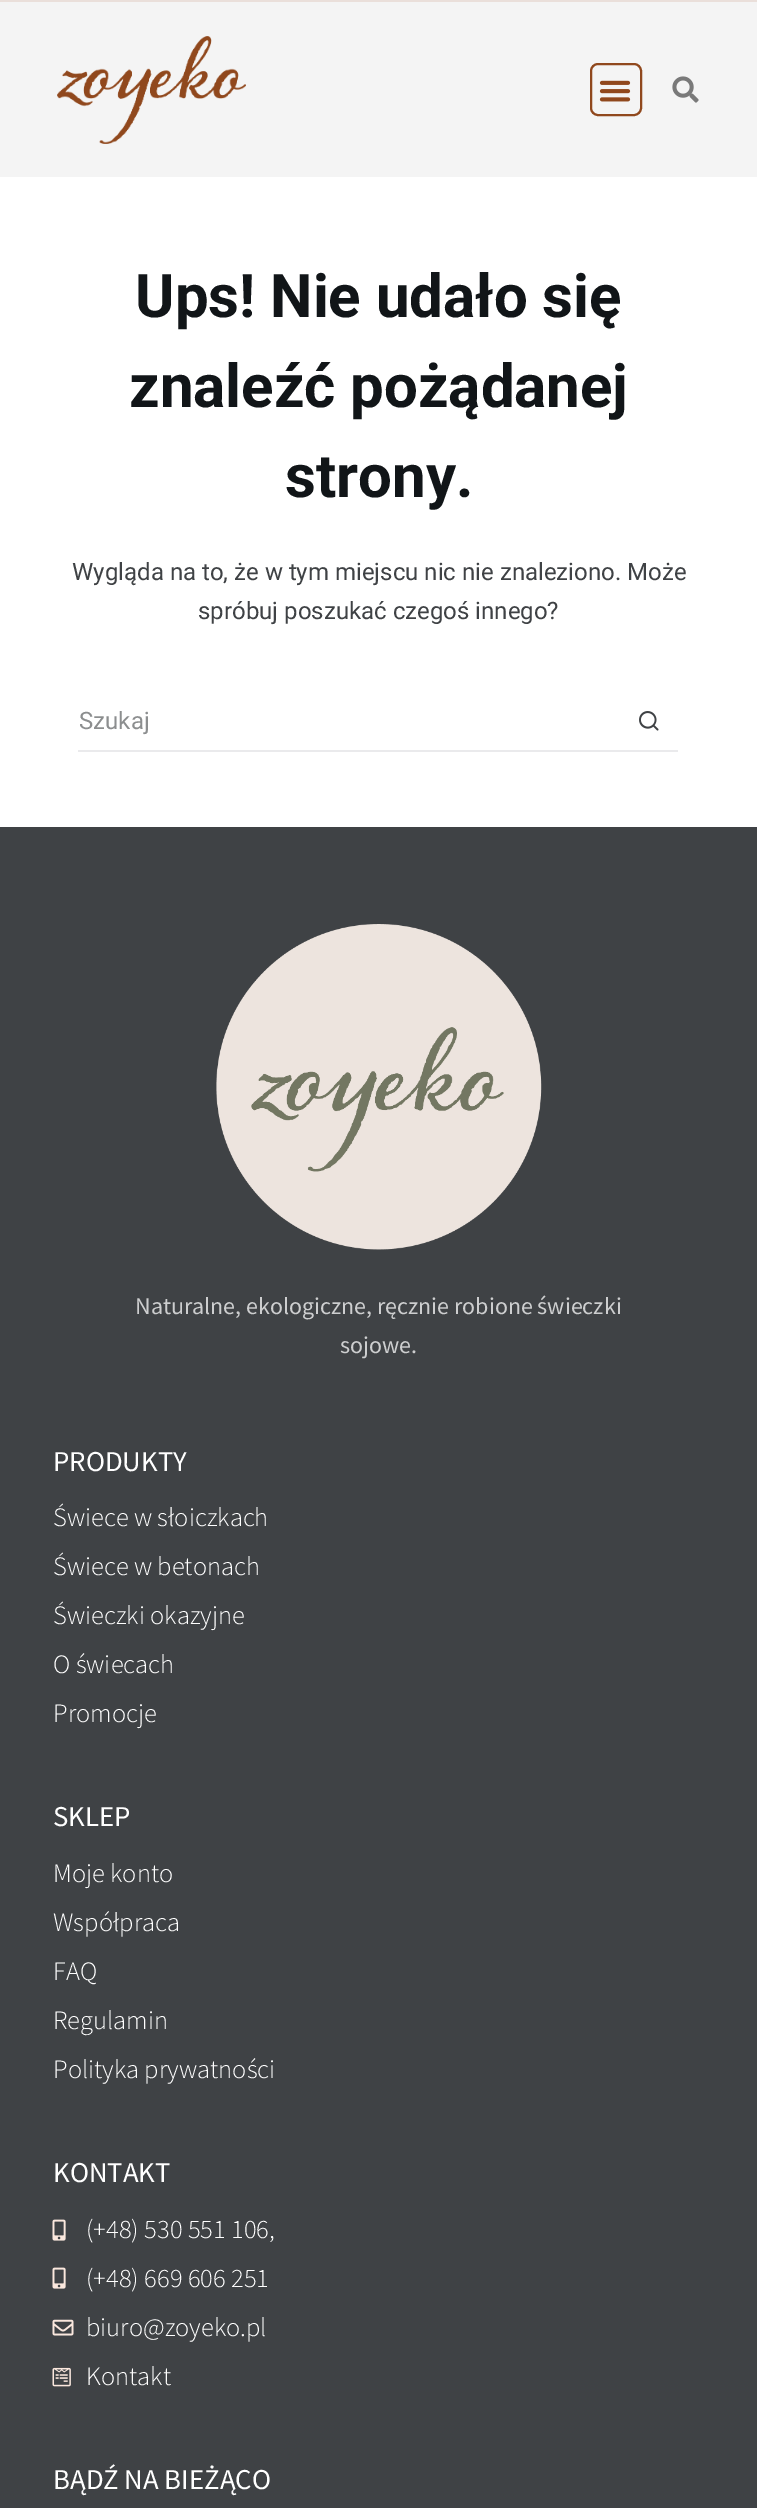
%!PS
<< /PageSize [757 2508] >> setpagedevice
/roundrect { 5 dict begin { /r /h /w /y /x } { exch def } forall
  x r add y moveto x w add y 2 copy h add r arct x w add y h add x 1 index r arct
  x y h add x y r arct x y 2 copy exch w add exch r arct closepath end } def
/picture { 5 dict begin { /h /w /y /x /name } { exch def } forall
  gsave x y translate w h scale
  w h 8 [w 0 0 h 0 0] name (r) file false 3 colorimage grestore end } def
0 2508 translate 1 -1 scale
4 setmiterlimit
1 setgray
0 0 757 2508 rectfill
0.957 setgray
0 2 757 175 rectfill
0.918 0.875 0.855 setrgbcolor
0 0 757 2 rectfill
(img1.rgb) 57 36 189 108 picture
0.565 0.282 0.114 setrgbcolor
2 setlinewidth
591 64 50 51 7 roundrect stroke
(img2.rgb) 599 80 32 22 picture
(img3.rgb) 672 76 27 27 picture
/Roboto-Bold [60 0 0 -60 0 0] selectfont
0.067 0.082 0.094 setrgbcolor
135 317 moveto (Ups! Nie udało się) show
129 407 moveto (znaleźć pożądanej) show
285 497 moveto (strony.) show
/Roboto-Regular [24 0 0 -24 0 0] selectfont
0.247 0.259 0.271 setrgbcolor
72 580 moveto (Wygląda na to, że w tym miejscu nic nie znaleziono. Może) show
198 619 moveto (spróbuj poszukać czegoś innego?) show
0.918 0.918 0.925 setrgbcolor
78 750 600 2 rectfill
0.549 0.557 0.561 setrgbcolor
79 729 moveto (Szukaj) show
(img4.rgb) 639 711 20 20 picture
0.247 0.259 0.271 setrgbcolor
0 827 757 1681 rectfill
(img5.rgb) 216 924 326 326 picture
/SourceSansPro-Regular [24 0 0 -24 0 0] selectfont
0.804 0.808 0.812 setrgbcolor
135 1314 moveto (Naturalne, ekologiczne, ręcznie robione świeczki) show
340 1353 moveto (sojowe.) show
/SourceSansPro-Regular [28.75 0 0 -28.75 0 0] selectfont
1 setgray
53 1471 moveto (PRODUKTY) show
/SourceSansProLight-Light [26.5 0 0 -26.5 0 0] selectfont
53 1526 moveto (Świece w słoiczkach) show
53 1575 moveto (Świece w betonach) show
53 1624 moveto (Świeczki okazyjne) show
53 1673 moveto (O świecach) show
53 1722 moveto (Promocje) show
/SourceSansPro-Regular [28.75 0 0 -28.75 0 0] selectfont
53 1826 moveto (SKLEP) show
/SourceSansProLight-Light [26.5 0 0 -26.5 0 0] selectfont
53 1882 moveto (Moje konto) show
53 1931 moveto (Współpraca) show
53 1980 moveto (FAQ) show
53 2029 moveto (Regulamin) show
53 2078 moveto (Polityka prywatności) show
/SourceSansPro-Regular [28.75 0 0 -28.75 0 0] selectfont
53 2182 moveto (KONTAKT) show
(img6.rgb) 52 2219 14 22 picture
/SourceSansProLight-Light [26.5 0 0 -26.5 0 0] selectfont
86 2238 moveto (\(+48\) 530 551 106,) show
(img6.rgb) 52 2267 14 22 picture
86 2287 moveto (\(+48\) 669 606 251) show
(img7.rgb) 52 2319 22 17 picture
86 2336 moveto (biuro@zoyeko.pl) show
(img8.rgb) 52 2367 19 20 picture
86 2385 moveto (Kontakt) show
/SourceSansPro-Regular [28.75 0 0 -28.75 0 0] selectfont
53 2489 moveto (BĄDŹ NA BIEŻĄCO) show
showpage
